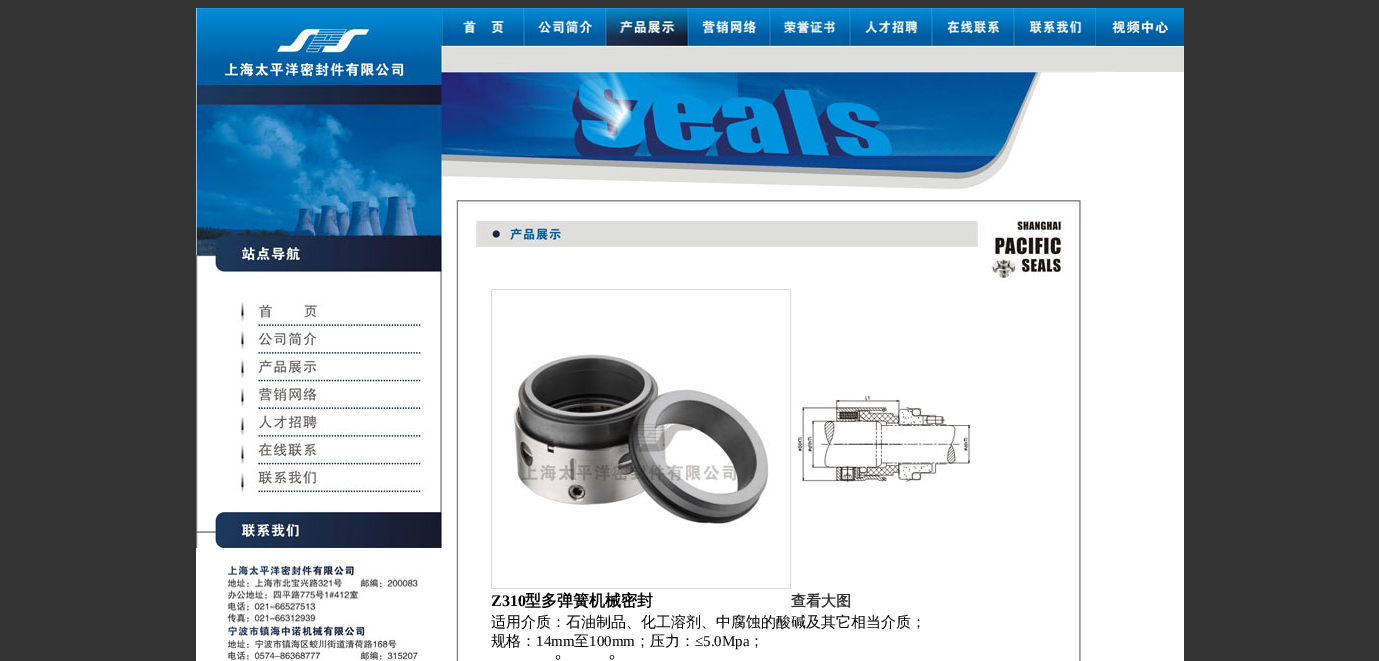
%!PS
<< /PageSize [1379 661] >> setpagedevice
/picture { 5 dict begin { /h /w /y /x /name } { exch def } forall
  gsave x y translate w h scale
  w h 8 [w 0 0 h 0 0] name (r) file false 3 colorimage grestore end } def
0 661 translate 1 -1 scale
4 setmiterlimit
0.2 setgray
0 0 1379 661 rectfill
1 setgray
196 72 988 589 rectfill
(img1.rgb) 196 8 246 77 picture
(img2.rgb) 196 85 246 20 picture
(img3.rgb) 196 105 246 130 picture
(img4.rgb) 196 235 246 36 picture
(img5.rgb) 196 271 246 28 picture
(img6.rgb) 196 299 246 29 picture
(img7.rgb) 196 328 246 28 picture
(img8.rgb) 196 356 246 28 picture
(img9.rgb) 196 384 246 28 picture
(img10.rgb) 196 412 246 28 picture
(img11.rgb) 196 440 246 28 picture
(img12.rgb) 196 468 246 26 picture
(img13.rgb) 196 494 246 19 picture
(img14.rgb) 196 513 246 35 picture
(img15.rgb) 226 564 194 97 picture
(img16.rgb) 442 8 82 38 picture
(img17.rgb) 524 8 82 38 picture
(img18.rgb) 606 8 82 38 picture
(img19.rgb) 688 8 82 38 picture
(img20.rgb) 770 8 80 38 picture
(img21.rgb) 850 8 82 38 picture
(img22.rgb) 932 8 82 38 picture
(img23.rgb) 1014 8 82 38 picture
(img24.rgb) 1096 8 88 38 picture
(img25.rgb) 442 46 742 26 picture
(img26.rgb) 442 72 654 119 picture
(img27.rgb) 453 199 629 22 picture
(img28.rgb) 456 221 21 440 picture
(img29.rgb) 477 221 500 26 picture
(img30.rgb) 491 289 300 300 picture
(img31.rgb) 791 393 184 90 picture
/LiberationSerif-Bold [16 0 0 -16 0 0] selectfont
0 setgray
491 606 moveto (Z310) show
/WenQuanYiZenHei-Bold [16 0 0 -16 0 0] selectfont
525 606 moveto (型多弹簧机械密封) show
/WenQuanYiZenHei-Bold [15 0 0 -15 0 0] selectfont
0.2 setgray
791 606 moveto (查看大图) show
/WenQuanYiZenHei-Medium [15 0 0 -15 0 0] selectfont
0 setgray
491 627 moveto (适用介质：石油制品、化工溶剂、中腐蚀的酸碱及其它相当介质；) show
491 646 moveto (规格：) show
/LiberationSerif-Regular [15 0 0 -15 0 0] selectfont
536 646 moveto (14mm) show
/WenQuanYiZenHei-Medium [15 0 0 -15 0 0] selectfont
574 646 moveto (至) show
/LiberationSerif-Regular [15 0 0 -15 0 0] selectfont
589 646 moveto (100mm) show
/WenQuanYiZenHei-Medium [15 0 0 -15 0 0] selectfont
635 646 moveto (；压力：) show
/LiberationSerif-Regular [15 0 0 -15 0 0] selectfont
695 646 moveto (≤5.0Mpa) show
/WenQuanYiZenHei-Medium [15 0 0 -15 0 0] selectfont
749 646 moveto (；) show
/LiberationSerif-Regular [15 0 0 -15 0 0] selectfont
555 665 moveto (°) show
609 665 moveto (°) show
(img32.rgb) 977 221 88 60 picture
(img33.rgb) 1079 221 2 440 picture
showpage
